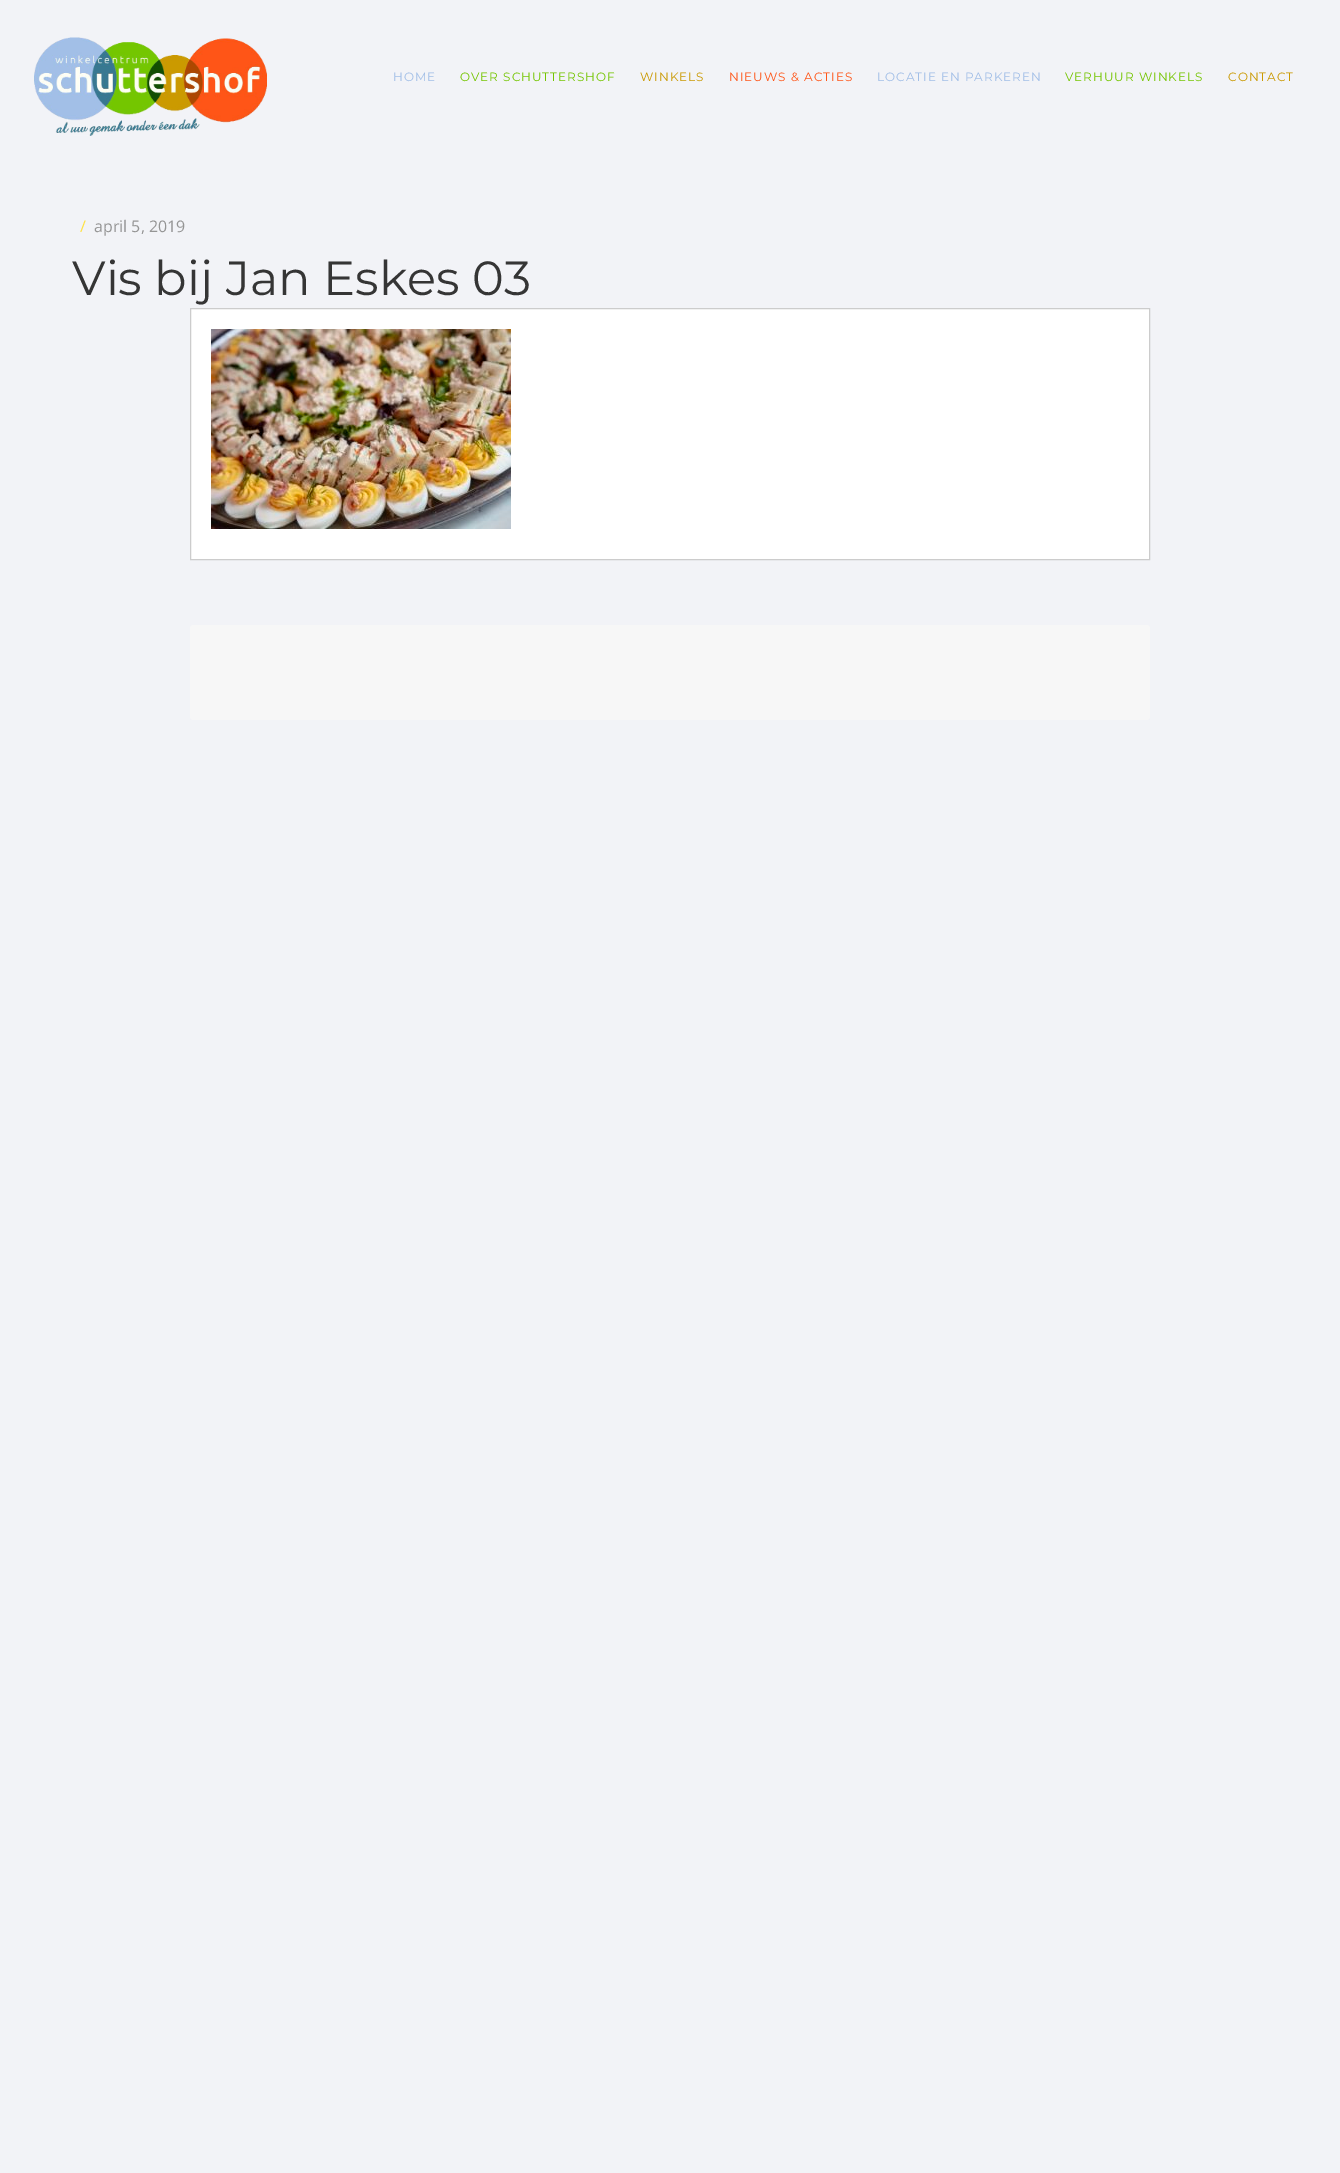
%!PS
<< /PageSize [1340 2173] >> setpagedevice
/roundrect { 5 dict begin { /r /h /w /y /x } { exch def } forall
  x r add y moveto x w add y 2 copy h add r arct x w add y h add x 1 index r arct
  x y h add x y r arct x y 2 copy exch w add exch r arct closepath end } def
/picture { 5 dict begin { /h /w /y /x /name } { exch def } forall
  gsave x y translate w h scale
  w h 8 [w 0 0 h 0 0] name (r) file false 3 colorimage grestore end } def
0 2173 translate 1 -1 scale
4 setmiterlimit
0.949 0.953 0.969 setrgbcolor
0 0 1340 2173 rectfill
(img1.rgb) 34 37 233 99 picture
/Montserrat-Regular [12 0 0 -12 0 0] selectfont
0.631 0.745 0.906 setrgbcolor
393 81 moveto 1 0 (HOME) ashow
0.455 0.773 0 setrgbcolor
460 81 moveto 1 0 (OVER SCHUTTERSHOF) ashow
0.792 0.6 0 setrgbcolor
640 81 moveto 1 0 (WINKELS) ashow
1 0.333 0.09 setrgbcolor
729 81 moveto 1 0 (NIEUWS & ACTIES) ashow
0.631 0.745 0.906 setrgbcolor
877 81 moveto 1 0 (LOCATIE EN PARKEREN) ashow
0.455 0.773 0 setrgbcolor
1065 81 moveto 1 0 (VERHUUR WINKELS) ashow
0.792 0.6 0 setrgbcolor
1228 81 moveto 1 0 (CONTACT) ashow
/OpenSans-Regular [16 0 0 -16 0 0] selectfont
1 0.886 0.255 setrgbcolor
80 232 moveto (/) show
0.584 setgray
94 232 moveto (april 5, 2019) show
/Montserrat-Regular [48 0 0 -48 0 0] selectfont
0.208 setgray
72 295 moveto (Vis bij Jan Eskes 03) show
1 setgray
newpath 190.5 308.5 moveto 1149.5 308.5 lineto 1149.5 559.5 lineto 190.5 559.5 lineto closepath gsave fill grestore
0.8 setgray
stroke
(img2.rgb) 211 329 300 200 picture
0.969 setgray
190 625 960 95 3 roundrect fill
showpage
